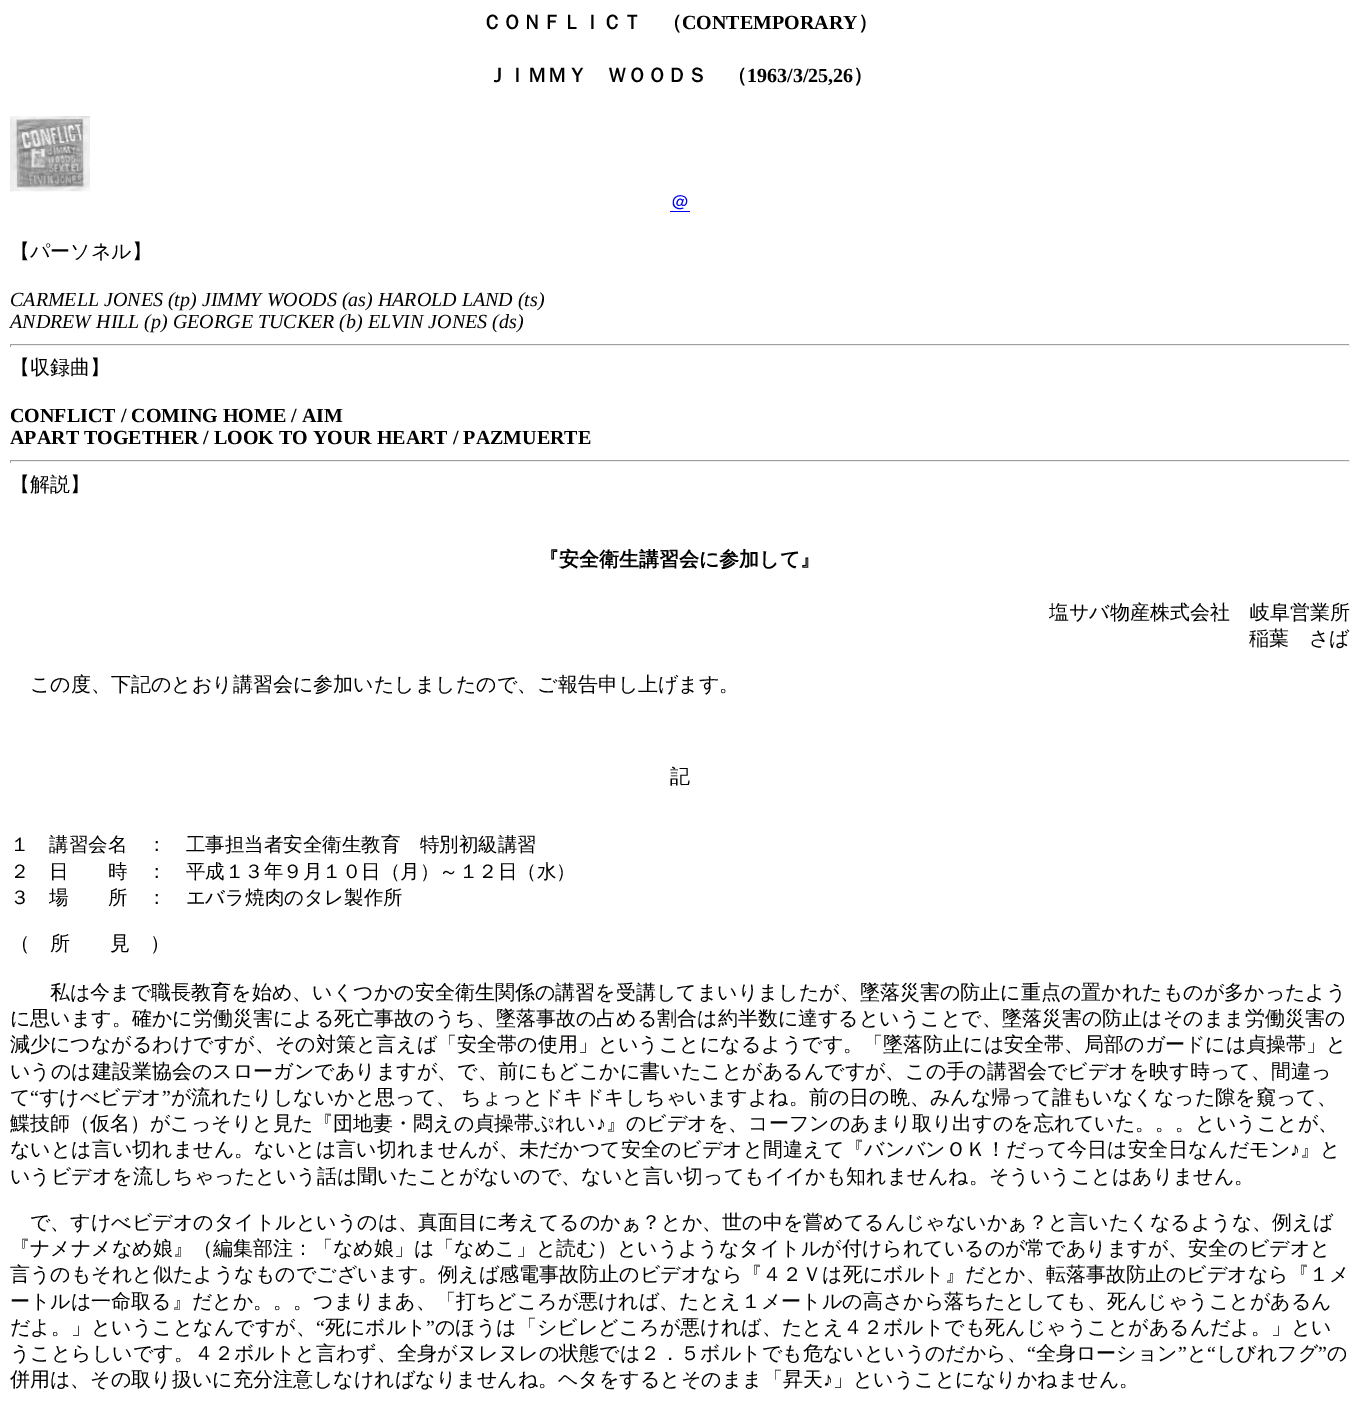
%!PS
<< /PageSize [1360 1411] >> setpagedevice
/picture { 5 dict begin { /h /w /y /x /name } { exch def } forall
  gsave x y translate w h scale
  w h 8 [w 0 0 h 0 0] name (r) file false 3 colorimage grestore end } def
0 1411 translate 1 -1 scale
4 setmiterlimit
1 setgray
0 0 1360 1411 rectfill
/WenQuanYiZenHei-Bold [20 0 0 -20 0 0] selectfont
0 setgray
482 29 moveto (ＣＯＮＦＬＩＣＴ　（) show
/LiberationSerif-Bold [20 0 0 -20 0 0] selectfont
682 29 moveto (CONTEMPORARY) show
/WenQuanYiZenHei-Bold [20 0 0 -20 0 0] selectfont
858 29 moveto (）) show
487 82 moveto (ＪＩＭＭＹ　ＷＯＯＤＳ　（) show
/LiberationSerif-Bold [20 0 0 -20 0 0] selectfont
747 82 moveto (1963/3/25,26) show
/WenQuanYiZenHei-Bold [20 0 0 -20 0 0] selectfont
853 82 moveto (）) show
(img1.rgb) 10 116 80 76 picture
/WenQuanYiZenHei-Medium [20 0 0 -20 0 0] selectfont
0 0 0.933 setrgbcolor
670 209 moveto (＠) show
670 211 20 1 rectfill
0 setgray
10 258 moveto (【パーソネル】) show
/LiberationSerif-Italic [20 0 0 -20 0 0] selectfont
10 306 moveto (CARMELL JONES \(tp\) JIMMY WOODS \(as\) HAROLD LAND \(ts\)) show
10 328 moveto (ANDREW HILL \(p\) GEORGE TUCKER \(b\) ELVIN JONES \(ds\)) show
0.624 setgray
10 344 1340 1 rectfill
0.933 setgray
1349 344 1 3 rectfill
10 345 1340 1 rectfill
0.624 setgray
10 344 1 3 rectfill
/WenQuanYiZenHei-Medium [20 0 0 -20 0 0] selectfont
0 setgray
10 374 moveto (【収録曲】) show
/LiberationSerif-Bold [20 0 0 -20 0 0] selectfont
10 422 moveto (CONFLICT / COMING HOME / AIM) show
10 444 moveto (APART TOGETHER / LOOK TO YOUR HEART / PAZMUERTE) show
0.624 setgray
10 460 1340 1 rectfill
0.933 setgray
1349 460 1 3 rectfill
10 461 1340 1 rectfill
0.624 setgray
10 460 1 3 rectfill
/WenQuanYiZenHei-Medium [20 0 0 -20 0 0] selectfont
0 setgray
10 491 moveto (【解説】) show
/WenQuanYiZenHei-Bold [20 0 0 -20 0 0] selectfont
539 566 moveto (『安全衛生講習会に参加して』) show
/WenQuanYiZenHei-Medium [20 0 0 -20 0 0] selectfont
1049 619 moveto (塩サバ物産株式会社　岐阜営業所) show
1249 645 moveto (稲葉　さば) show
30 691 moveto (この度、下記のとおり講習会に参加いたしましたので、ご報告申し上げます。) show
670 783 moveto (記) show
/WenQuanYiZenHei-Medium [19.5 0 0 -19.5 0 0] selectfont
10 851 moveto (１　講習会名　：　工事担当者安全衛生教育　特別初級講習) show
10 878 moveto (２　日　　時　：　平成１３年９月１０日（月）～１２日（水）) show
10 904 moveto (３　場　　所　：　エバラ焼肉のタレ製作所) show
/WenQuanYiZenHei-Medium [20 0 0 -20 0 0] selectfont
10 950 moveto (（　所　　見　）) show
50 999 moveto (私は今まで職長教育を始め、いくつかの安全衛生関係の講習を受講してまいりましたが、墜落災害の防止に重点の置かれたものが多かったよう) show
10 1025 moveto (に思います。確かに労働災害による死亡事故のうち、墜落事故の占める割合は約半数に達するということで、墜落災害の防止はそのまま労働災害の) show
10 1051 moveto (減少につながるわけですが、その対策と言えば「安全帯の使用」ということになるようです。「墜落防止には安全帯、局部のガードには貞操帯」と) show
10 1078 moveto (いうのは建設業協会のスローガンでありますが、で、前にもどこかに書いたことがあるんですが、この手の講習会でビデオを映す時って、間違っ) show
10 1104 moveto (て) show
/LiberationSerif-Regular [20 0 0 -20 0 0] selectfont
30 1104 moveto (“) show
/WenQuanYiZenHei-Medium [20 0 0 -20 0 0] selectfont
39 1104 moveto (すけべビデオ) show
/LiberationSerif-Regular [20 0 0 -20 0 0] selectfont
162 1104 moveto (”) show
/WenQuanYiZenHei-Medium [20 0 0 -20 0 0] selectfont
171 1104 moveto -1 0 32 (が流れたりしないかと思って、 ちょっとドキドキしちゃいますよね。前の日の晩、みんな帰って誰もいなくなった隙を窺って、) widthshow
10 1130 moveto (鰈技師（仮名）がこっそりと見た『団地妻・悶えの貞操帯ぷれい) show
/LiberationSerif-Regular [20 0 0 -20 0 0] selectfont
596 1130 moveto (♪) show
/WenQuanYiZenHei-Medium [20 0 0 -20 0 0] selectfont
606 1130 moveto (』のビデオを、コーフンのあまり取り出すのを忘れていた。。。ということが、) show
10 1156 moveto (ないとは言い切れません。ないとは言い切れませんが、未だかつて安全のビデオと間違えて『バンバンＯＫ！だって今日は安全日なんだモン) show
/LiberationSerif-Regular [20 0 0 -20 0 0] selectfont
1290 1156 moveto (♪) show
/WenQuanYiZenHei-Medium [20 0 0 -20 0 0] selectfont
1300 1156 moveto (』と) show
10 1183 moveto (いうビデオを流しちゃったという話は聞いたことがないので、ないと言い切ってもイイかも知れませんね。そういうことはありません。) show
30 1229 moveto (で、すけべビデオのタイトルというのは、真面目に考えてるのかぁ？とか、世の中を嘗めてるんじゃないかぁ？と言いたくなるような、例えば) show
10 1255 moveto (『ナメナメなめ娘』（編集部注：「なめ娘」は「なめこ」と読む）というようなタイトルが付けられているのが常でありますが、安全のビデオと) show
10 1281 moveto (言うのもそれと似たようなものでございます。例えば感電事故防止のビデオなら『４２Ｖは死にボルト』だとか、転落事故防止のビデオなら『１メ) show
10 1308 moveto (ートルは一命取る』だとか。。。つまりまあ、「打ちどころが悪ければ、たとえ１メートルの高さから落ちたとしても、死んじゃうことがあるん) show
10 1334 moveto (だよ。」ということなんですが、) show
/LiberationSerif-Regular [20 0 0 -20 0 0] selectfont
316 1334 moveto (“) show
/WenQuanYiZenHei-Medium [20 0 0 -20 0 0] selectfont
325 1334 moveto (死にボルト) show
/LiberationSerif-Regular [20 0 0 -20 0 0] selectfont
426 1334 moveto (”) show
/WenQuanYiZenHei-Medium [20 0 0 -20 0 0] selectfont
435 1334 moveto (のほうは「シビレどころが悪ければ、たとえ４２ボルトでも死んじゃうことがあるんだよ。」とい) show
10 1360 moveto (うことらしいです。４２ボルトと言わず、全身がヌレヌレの状態では２．５ボルトでも危ないというのだから、) show
/LiberationSerif-Regular [20 0 0 -20 0 0] selectfont
1027 1360 moveto (“) show
/WenQuanYiZenHei-Medium [20 0 0 -20 0 0] selectfont
1036 1360 moveto (全身ローション) show
/LiberationSerif-Regular [20 0 0 -20 0 0] selectfont
1178 1360 moveto (”) show
/WenQuanYiZenHei-Medium [20 0 0 -20 0 0] selectfont
1187 1360 moveto (と) show
/LiberationSerif-Regular [20 0 0 -20 0 0] selectfont
1207 1360 moveto (“) show
/WenQuanYiZenHei-Medium [20 0 0 -20 0 0] selectfont
1216 1360 moveto (しびれフグ) show
/LiberationSerif-Regular [20 0 0 -20 0 0] selectfont
1318 1360 moveto (”) show
/WenQuanYiZenHei-Medium [20 0 0 -20 0 0] selectfont
1327 1360 moveto (の) show
10 1386 moveto (併用は、その取り扱いに充分注意しなければなりませんね。ヘタをするとそのまま「昇天) show
/LiberationSerif-Regular [20 0 0 -20 0 0] selectfont
823 1386 moveto (♪) show
/WenQuanYiZenHei-Medium [20 0 0 -20 0 0] selectfont
833 1386 moveto (」ということになりかねません。) show
showpage
